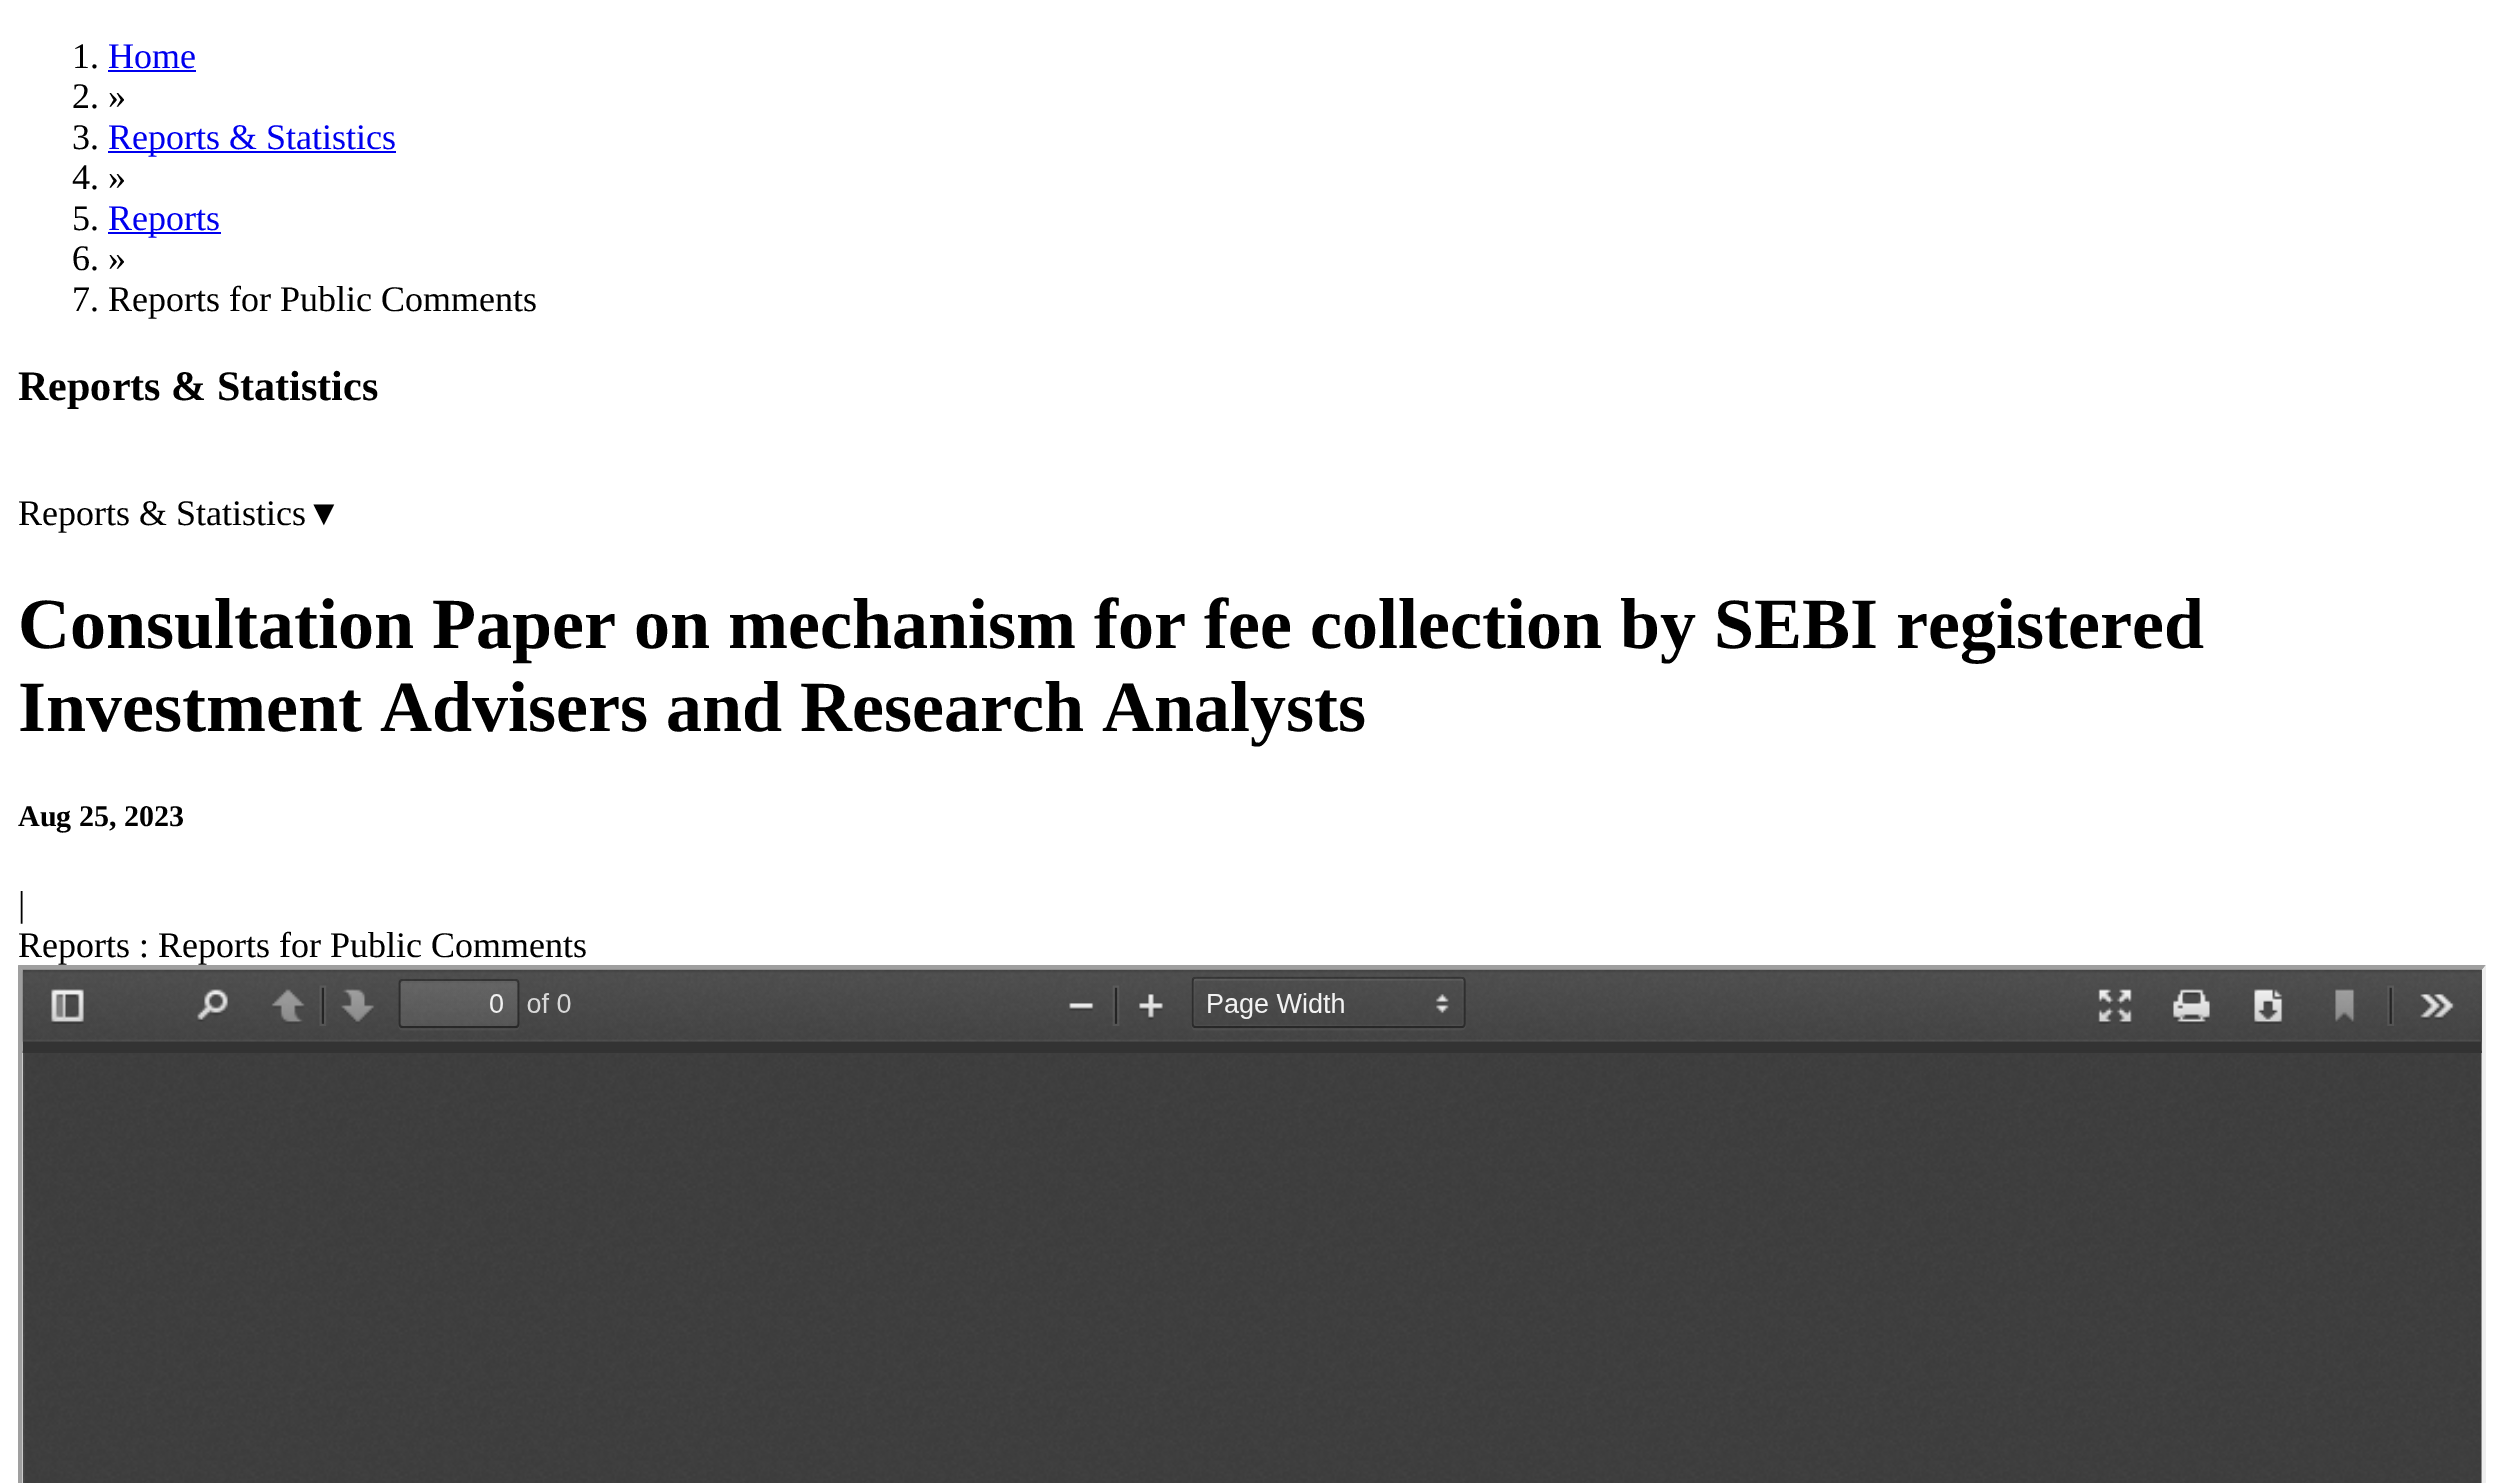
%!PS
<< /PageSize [2494 1483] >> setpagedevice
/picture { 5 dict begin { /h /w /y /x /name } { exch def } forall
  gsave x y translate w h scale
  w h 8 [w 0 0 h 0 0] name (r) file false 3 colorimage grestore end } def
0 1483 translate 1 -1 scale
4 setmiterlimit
1 setgray
0 0 2494 1483 rectfill
/LiberationSerif-Regular [36 0 0 -36 0 0] selectfont
0 setgray
72 68 moveto (1.) show
0 0 0.933 setrgbcolor
108 68 moveto (Home) show
108 70 88 2 rectfill
0 setgray
72 108 moveto (2. ») show
72 149 moveto (3.) show
0 0 0.933 setrgbcolor
108 151 288 2 rectfill
108 149 moveto (Reports & Statistics) show
0 setgray
72 189 moveto (4. ») show
72 230 moveto (5.) show
0 0 0.933 setrgbcolor
108 232 113 2 rectfill
108 230 moveto (Reports) show
0 setgray
72 270 moveto (6. ») show
72 311 moveto (7. Reports for Public Comments) show
/LiberationSerif-Bold [42.1 0 0 -42.1 0 0] selectfont
18 400 moveto (Reports & Statistics) show
/LiberationSerif-Regular [36 0 0 -36 0 0] selectfont
18 525 moveto (Reports & Statistics▼) show
/LiberationSerif-Bold [72 0 0 -72 0 0] selectfont
18 648 moveto (Consultation Paper on mechanism for fee collection by SEBI registered) show
18 731 moveto (Investment Advisers and Research Analysts) show
/LiberationSerif-Bold [30 0 0 -30 0 0] selectfont
18 826 moveto (Aug 25, 2023) show
/LiberationSerif-Regular [36 0 0 -36 0 0] selectfont
18 916 moveto (|) show
18 957 moveto (Reports : Reports for Public Comments) show
0.624 setgray
newpath 18 965 moveto 2486 965 lineto 2482 970 lineto 22 970 lineto closepath fill
newpath 18 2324 moveto 18 965 lineto 22 970 lineto 22 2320 lineto closepath fill
(img1.rgb) 22 969 2460 514 picture
0.933 setgray
newpath 2486 965 moveto 2486 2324 lineto 2482 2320 lineto 2482 970 lineto closepath fill
showpage
